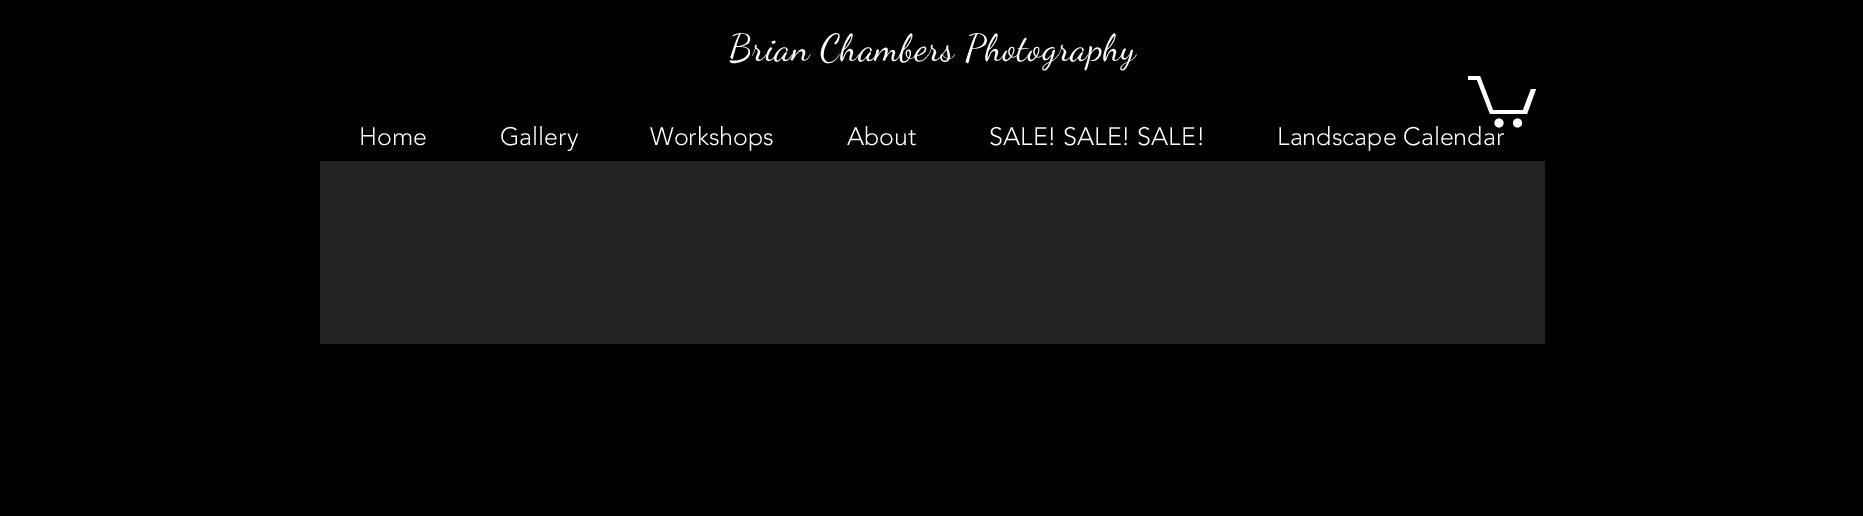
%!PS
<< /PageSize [1863 516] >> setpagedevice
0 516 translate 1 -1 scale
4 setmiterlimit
0 setgray
0 0 1863 516 rectfill
/DancingScript-Regular [37.5 0 0 -37.5 0 0] selectfont
1 setgray
729 60 moveto 0.4 0 (Brian Chambers Photography) ashow
newpath 1536 89 moveto 1527 114 lineto 1490 114 lineto 1477 80 lineto 1468 80 lineto 1468 76 lineto 1480 76 lineto 1493 110 lineto 1523 110 lineto 1531 89 lineto fill
newpath 1517.5 123 4.5 0 360 arc closepath fill
newpath 1499 123 4.5 0 360 arc closepath fill
/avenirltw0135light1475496-Light [25 0 0 -25 0 0] selectfont
359 145 moveto (Home) show
500 145 moveto (Gallery) show
650 145 moveto (Workshops) show
847 145 moveto (About) show
989 145 moveto (SALE! SALE! SALE!) show
1277 145 moveto (Landscape Calendar) show
0.137 setgray
320 161 1225 183 rectfill
showpage
